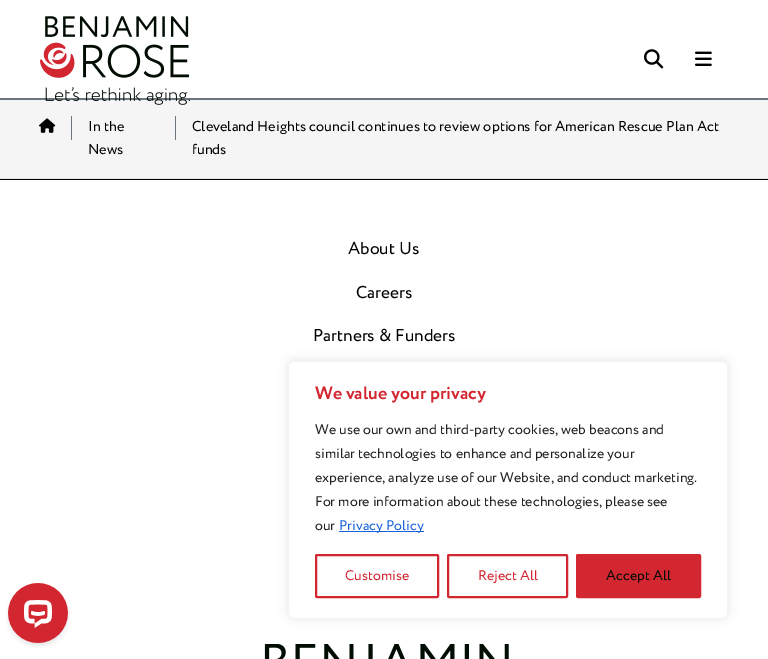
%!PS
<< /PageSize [768 659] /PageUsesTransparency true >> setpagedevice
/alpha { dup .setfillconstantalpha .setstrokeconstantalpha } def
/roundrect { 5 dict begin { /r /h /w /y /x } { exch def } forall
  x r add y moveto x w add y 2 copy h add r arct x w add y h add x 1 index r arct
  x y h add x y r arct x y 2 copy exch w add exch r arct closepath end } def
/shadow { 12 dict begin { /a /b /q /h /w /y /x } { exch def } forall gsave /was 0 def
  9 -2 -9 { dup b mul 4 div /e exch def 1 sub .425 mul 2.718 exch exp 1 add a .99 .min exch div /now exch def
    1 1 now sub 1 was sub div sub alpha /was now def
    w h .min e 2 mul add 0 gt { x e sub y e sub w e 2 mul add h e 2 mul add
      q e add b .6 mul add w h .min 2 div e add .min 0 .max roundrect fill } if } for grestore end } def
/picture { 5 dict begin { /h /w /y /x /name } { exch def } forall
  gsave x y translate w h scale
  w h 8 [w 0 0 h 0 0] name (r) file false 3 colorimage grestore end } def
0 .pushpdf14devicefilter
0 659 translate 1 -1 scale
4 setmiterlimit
1 setgray
0 0 768 659 rectfill
0.424 0.459 0.49 setrgbcolor
0 98 768 2 rectfill
0.961 setgray
0 100 768 78 rectfill
(img1.rgb) 40 16 150 89 picture
(img2.rgb) 644 49 20 20 picture
(img3.rgb) 695 51 17 15 picture
0.89 setgray
0 178 768 1 rectfill
(img4.rgb) 39 118 17 15 picture
0.424 0.459 0.49 setrgbcolor
71 116 1 24 rectfill
/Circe-Regular [14.4 0 0 -14.4 0 0] selectfont
0 setgray
88 131 moveto (In the) show
88 154 moveto (News) show
0.424 0.459 0.49 setrgbcolor
175 116 1 24 rectfill
0 setgray
192 131 moveto (Cleveland Heights council continues to review options for American Rescue Plan Act) show
192 154 moveto (funds) show
0 179 768 1 rectfill
/Circe-Regular [17.25 0 0 -17.25 0 0] selectfont
348 254 moveto (About Us) show
356 298 moveto (Careers) show
313 341 moveto (Partners & Funders) show
(img5.rgb) 264 644 245 15 picture
0.675 0.671 0.671 setrgbcolor
288 360 440 258 6 5 0.3 shadow
1 setgray
288.5 361.5 439 257 5.5 roundrect gsave fill grestore
0.957 setgray
stroke
/Circe-Bold [18 0 0 -18 0 0] selectfont
0.824 0.149 0.188 setrgbcolor
315 399 moveto (We value your privacy) show
/Circe-Regular [14 0 0 -14 0 0] selectfont
0.129 setgray
315 434 moveto (We use our own and third-party cookies, web beacons and) show
315 458 moveto (similar technologies to enhance and personalize your) show
315 482 moveto (experience, analyze use of our Website, and conduct marketing.) show
315 506 moveto (For more information about these technologies, please see) show
315 530 moveto (our) show
0.094 0.388 0.863 setrgbcolor
339 531 85 1 rectfill
339 530 moveto (Privacy Policy) show
0.824 0.149 0.188 setrgbcolor
2 setlinewidth
316 555 122 42 1 roundrect stroke
345 580 moveto (Customise) show
448 555 119 42 1 roundrect stroke
478 580 moveto (Reject All) show
577 555 123 42 1 roundrect gsave fill grestore
stroke
0.004 0.043 0.012 setrgbcolor
606 580 moveto (Accept All) show
(img6.rgb) 6 583 64 65 picture
.poppdf14devicefilter showpage
